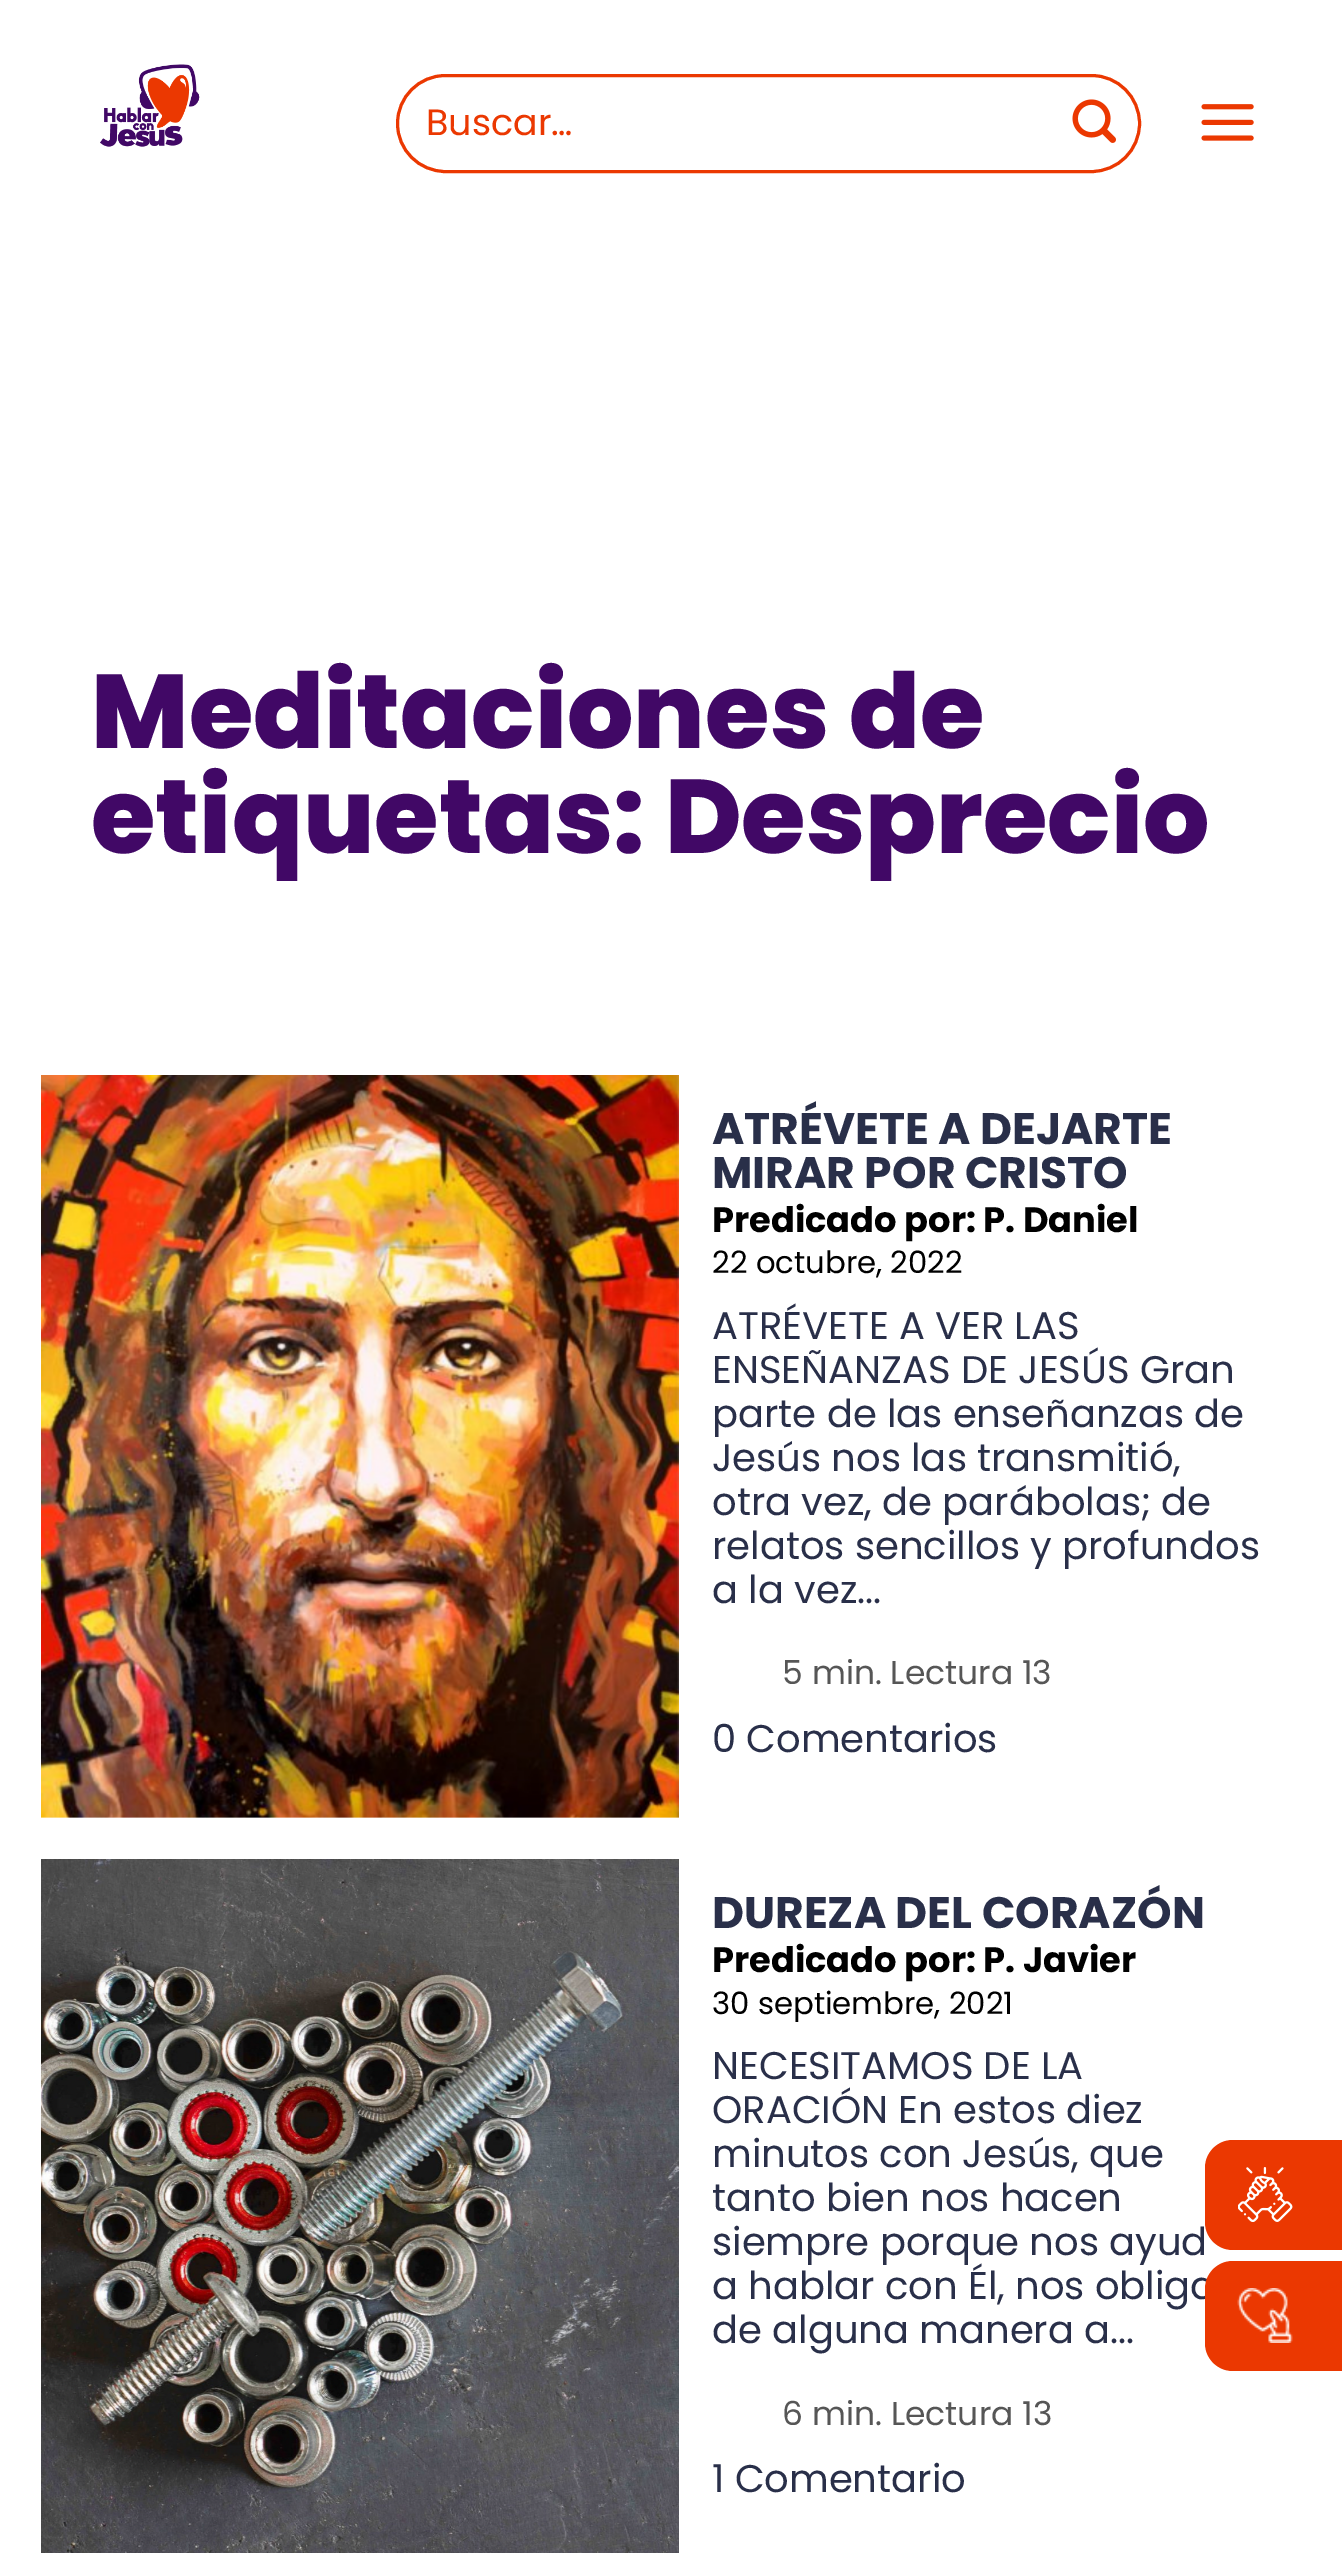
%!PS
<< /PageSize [1342 2553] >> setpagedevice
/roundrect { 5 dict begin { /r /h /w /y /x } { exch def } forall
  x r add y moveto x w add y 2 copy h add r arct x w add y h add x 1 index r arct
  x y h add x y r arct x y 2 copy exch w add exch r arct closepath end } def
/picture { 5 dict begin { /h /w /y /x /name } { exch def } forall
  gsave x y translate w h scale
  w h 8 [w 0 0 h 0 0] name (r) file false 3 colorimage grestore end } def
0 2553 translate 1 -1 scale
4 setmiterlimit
1 setgray
0 0 1342 2553 rectfill
(img1.rgb) 100 64 100 83 picture
0.922 0.22 0.004 setrgbcolor
3 setlinewidth
397.5 75.5 742 96 48 roundrect stroke
/Poppins-Regular [36.5 0 0 -36.5 0 0] selectfont
426 135 moveto (Buscar…) show
(img2.rgb) 1072 99 44 44 picture
(img3.rgb) 1201 104 53 37 picture
/Poppins-ExtraBold [104.5 0 0 -104.5 0 0] selectfont
0.255 0.031 0.4 setrgbcolor
91 748 moveto (Meditaciones de) show
91 853 moveto (etiquetas: Desprecio) show
(img4.rgb) 41 1075 638 743 picture
/Poppins-Bold [44 0 0 -44 0 0] selectfont
0.161 0.184 0.286 setrgbcolor
712 1144 moveto (ATRÉVETE A DEJARTE) show
712 1188 moveto (MIRAR POR CRISTO) show
/Poppins-Bold [35.25 0 0 -35.25 0 0] selectfont
0 setgray
712 1232 moveto (Predicado por: P. Daniel) show
/Poppins-Regular [30.75 0 0 -30.75 0 0] selectfont
712 1273 moveto (22 octubre, 2022) show
/Poppins-Regular [38.5 0 0 -38.5 0 0] selectfont
0.161 0.184 0.286 setrgbcolor
712 1339 moveto (ATRÉVETE A VER LAS) show
712 1383 moveto (ENSEÑANZAS DE JESÚS Gran) show
712 1427 moveto (parte de las enseñanzas de) show
712 1471 moveto (Jesús nos las transmitió,) show
712 1515 moveto (otra vez, de parábolas; de) show
712 1559 moveto (relatos sencillos y profundos) show
712 1603 moveto (a la vez...) show
/Poppins-Regular [33 0 0 -33 0 0] selectfont
0.337 setgray
782 1684 moveto (5 min. Lectura 13) show
/Poppins-Regular [38.5 0 0 -38.5 0 0] selectfont
0.161 0.184 0.286 setrgbcolor
712 1752 moveto (0 Comentarios) show
(img5.rgb) 41 1859 638 694 picture
/Poppins-Bold [44 0 0 -44 0 0] selectfont
712 1928 moveto (DUREZA DEL CORAZÓN) show
/Poppins-Bold [35.25 0 0 -35.25 0 0] selectfont
0 setgray
712 1972 moveto (Predicado por: P. Javier) show
/Poppins-Regular [30.75 0 0 -30.75 0 0] selectfont
712 2014 moveto (30 septiembre, 2021) show
/Poppins-Regular [38.5 0 0 -38.5 0 0] selectfont
0.161 0.184 0.286 setrgbcolor
712 2079 moveto (NECESITAMOS DE LA) show
712 2123 moveto (ORACIÓN En estos diez) show
712 2167 moveto (minutos con Jesús, que) show
712 2211 moveto (tanto bien nos hacen) show
712 2255 moveto (siempre porque nos ayud) show
712 2299 moveto (a hablar con Él, nos obliga) show
712 2343 moveto (de alguna manera a...) show
/Poppins-Regular [33 0 0 -33 0 0] selectfont
0.337 setgray
782 2425 moveto (6 min. Lectura 13) show
/Poppins-Regular [38.5 0 0 -38.5 0 0] selectfont
0.161 0.184 0.286 setrgbcolor
712 2492 moveto (1 Comentario) show
0.922 0.22 0.004 setrgbcolor
newpath 1233 2140 moveto 1342 2140 lineto 1342 2250 lineto 1233 2250 lineto 1217.5 2250 1205 2237.5 1205 2222 curveto 1205 2168 lineto 1205 2152.5 1217.5 2140 1233 2140 curveto closepath fill
(img6.rgb) 1238 2167 55 55 picture
newpath 1233 2261 moveto 1342 2261 lineto 1342 2371 lineto 1233 2371 lineto 1217.5 2371 1205 2358.5 1205 2343 curveto 1205 2289 lineto 1205 2273.5 1217.5 2261 1233 2261 curveto closepath fill
(img7.rgb) 1237 2288 56 55 picture
showpage
